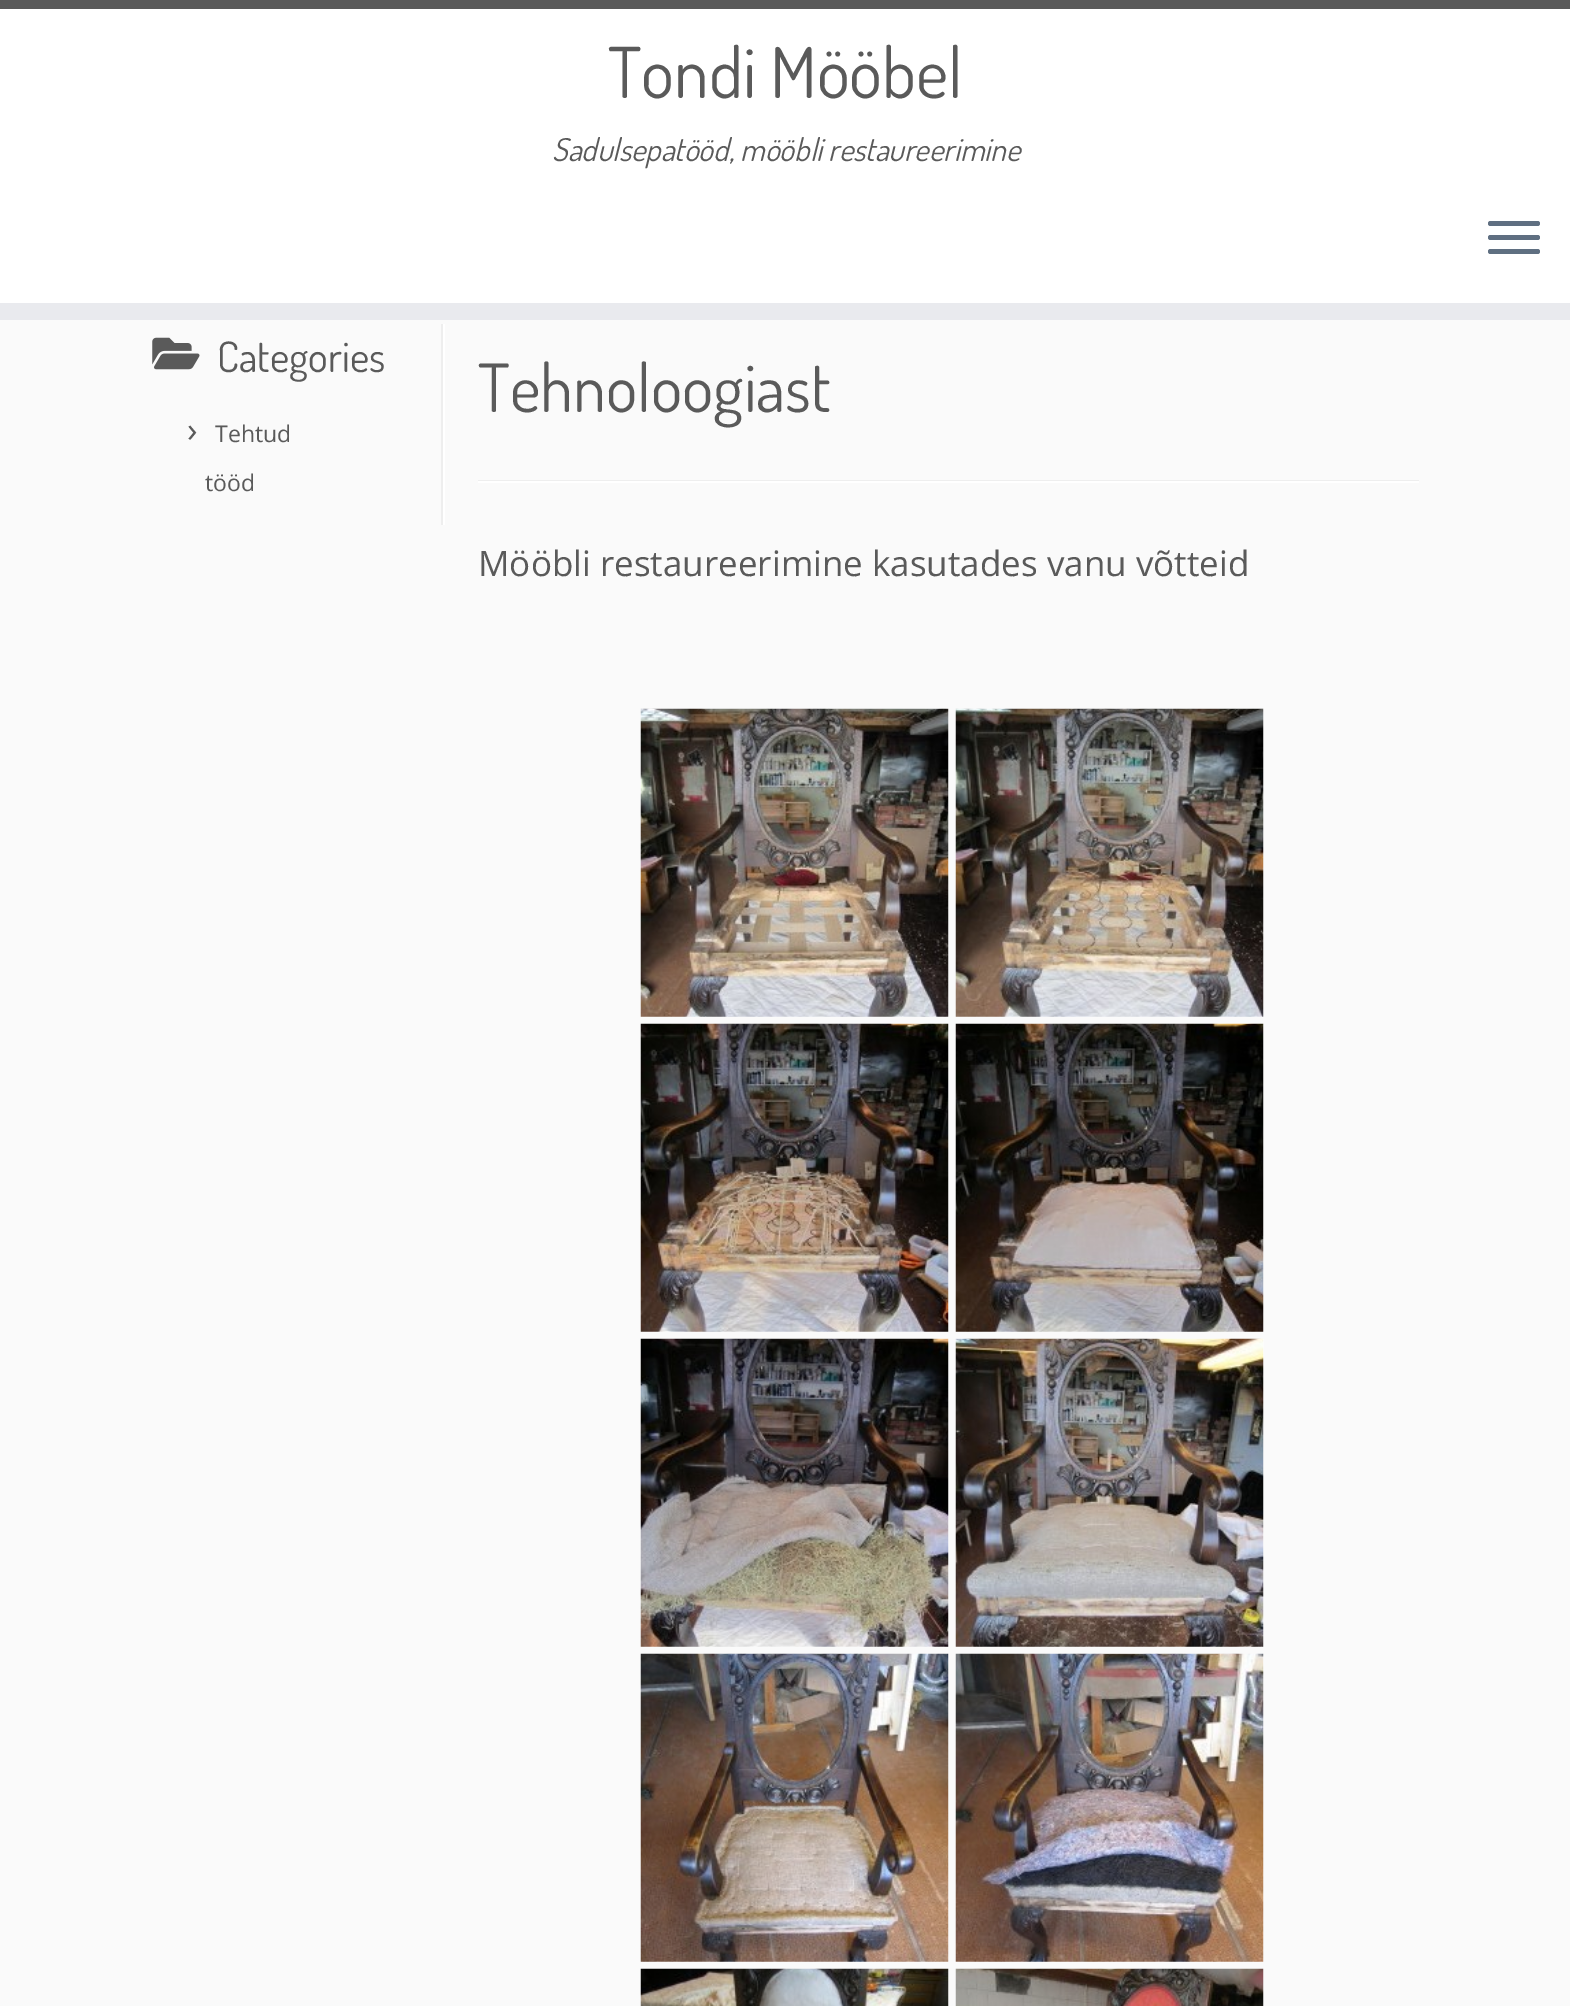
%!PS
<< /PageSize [1570 2006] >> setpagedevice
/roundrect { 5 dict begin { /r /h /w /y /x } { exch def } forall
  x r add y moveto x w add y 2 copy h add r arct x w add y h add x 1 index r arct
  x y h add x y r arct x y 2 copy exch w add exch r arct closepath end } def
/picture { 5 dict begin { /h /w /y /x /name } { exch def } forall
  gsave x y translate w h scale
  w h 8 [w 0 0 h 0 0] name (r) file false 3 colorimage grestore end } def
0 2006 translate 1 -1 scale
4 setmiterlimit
0.98 setgray
0 0 1570 2006 rectfill
1 setgray
0 9 1570 294 rectfill
0.353 setgray
0 0 1570 9 rectfill
0.914 0.918 0.933 setrgbcolor
0 303 1570 17 rectfill
/Dosis-Regular [70 0 0 -70 0 0] selectfont
0.353 setgray
608 98 moveto (Tondi Mööbel) show
/Dosis-Italic [31.5 0 0 -31.5 0 0] selectfont
552 161 moveto (Sadulsepatööd, mööbli restaureerimine) show
0.373 0.435 0.506 setrgbcolor
1488 221 52 5 2.5 roundrect fill
1488 235 52 5 2.5 roundrect fill
1488 249 52 5 2.5 roundrect fill
0.933 setgray
441 324 2 201 rectfill
(img1.rgb) 152 337 48 33 picture
/Dosis-Regular [42 0 0 -42 0 0] selectfont
0.353 setgray
217 372 moveto (Categories) show
/OpenSans-Regular [35 0 0 -35 0 0] selectfont
187 442 moveto (›) show
/OpenSans-Regular [23 0 0 -23 0 0] selectfont
215 442 moveto (Tehtud) show
205 491 moveto (tööd) show
1 setgray
443 324 2 201 rectfill
/Dosis-Regular [66.5 0 0 -66.5 0 0] selectfont
0.353 setgray
478 412 moveto (Tehnoloogiast) show
0.933 setgray
478 480 941 1 rectfill
1 setgray
478 481 941 2 rectfill
/OpenSans-Regular [35 0 0 -35 0 0] selectfont
0.353 setgray
478 576 moveto (Mööbli restaureerimine kasutades vanu võtteid) show
(img2.rgb) 640 708 309 309 picture
(img3.rgb) 955 708 309 309 picture
(img4.rgb) 640 1023 309 309 picture
(img5.rgb) 955 1023 309 309 picture
(img6.rgb) 640 1338 309 309 picture
(img7.rgb) 955 1338 309 309 picture
(img8.rgb) 640 1653 309 309 picture
(img9.rgb) 955 1653 309 309 picture
(img10.rgb) 640 1968 309 38 picture
(img11.rgb) 955 1968 309 38 picture
showpage
